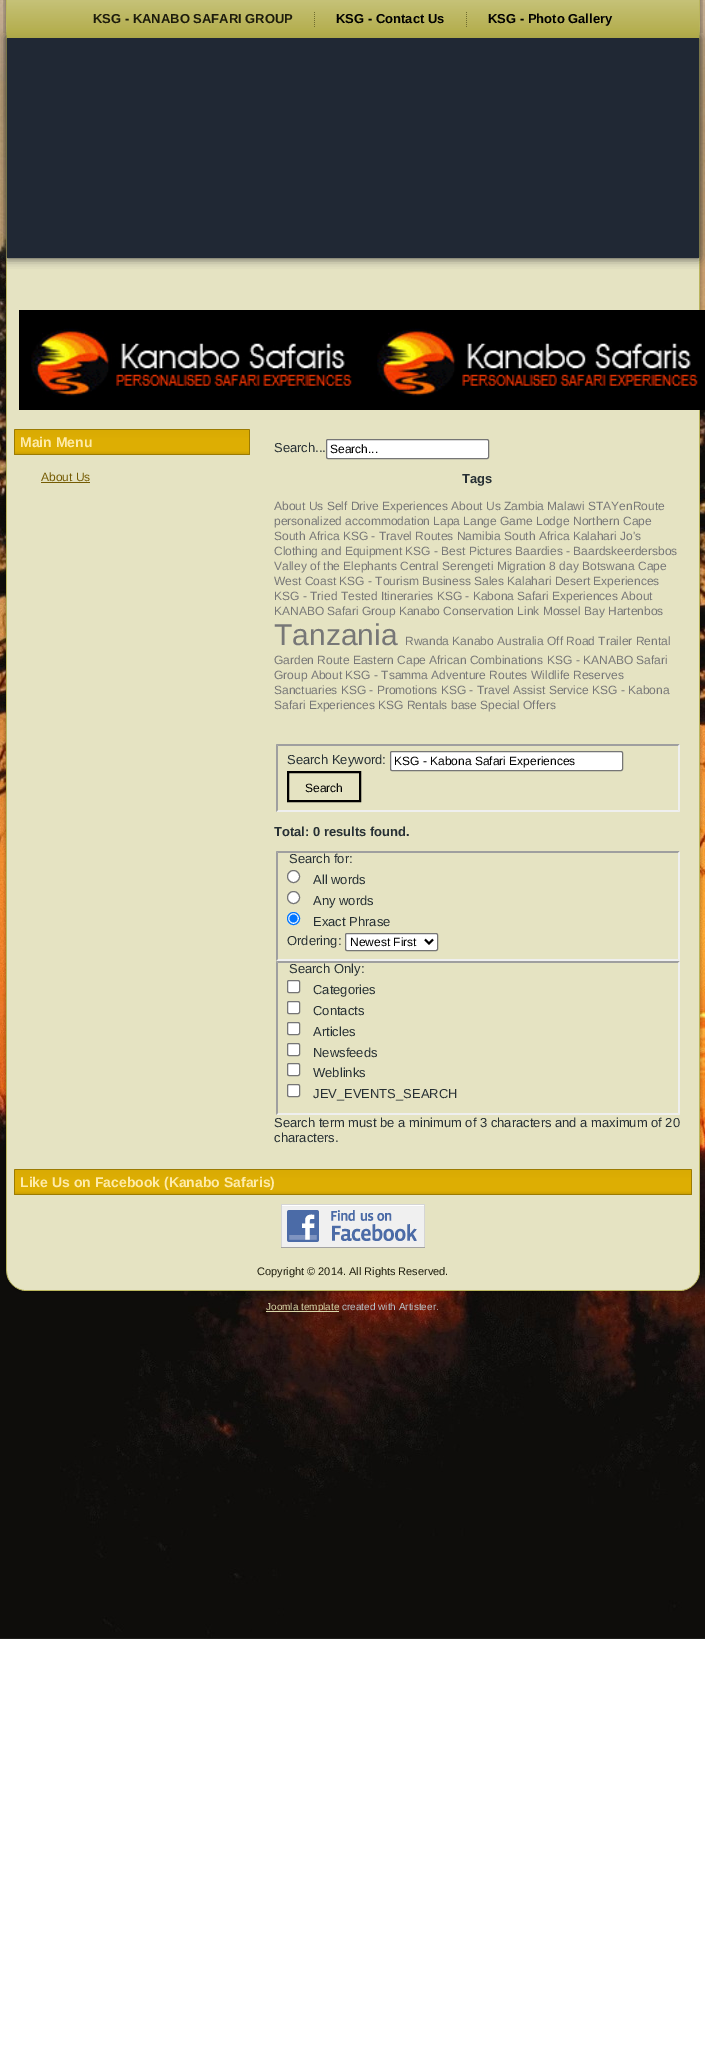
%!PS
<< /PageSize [705 2045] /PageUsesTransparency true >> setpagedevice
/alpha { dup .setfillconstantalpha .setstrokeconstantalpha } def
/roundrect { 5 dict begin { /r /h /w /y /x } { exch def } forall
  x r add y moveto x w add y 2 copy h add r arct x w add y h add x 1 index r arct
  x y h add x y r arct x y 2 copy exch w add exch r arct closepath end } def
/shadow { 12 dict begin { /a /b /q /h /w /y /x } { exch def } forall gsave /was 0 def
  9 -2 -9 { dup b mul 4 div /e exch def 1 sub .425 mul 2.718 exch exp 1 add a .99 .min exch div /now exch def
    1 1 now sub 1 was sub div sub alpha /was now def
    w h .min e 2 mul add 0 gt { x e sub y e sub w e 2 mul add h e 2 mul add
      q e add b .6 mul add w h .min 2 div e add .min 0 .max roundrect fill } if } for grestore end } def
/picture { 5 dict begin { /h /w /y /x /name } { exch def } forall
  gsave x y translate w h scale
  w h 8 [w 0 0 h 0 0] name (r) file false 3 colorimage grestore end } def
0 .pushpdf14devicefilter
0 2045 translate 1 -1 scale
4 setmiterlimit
1 setgray
0 0 705 2045 rectfill
(img1.rgb) 0 0 705 1639 picture
(img2.rgb) 0 0 705 81 picture
(img3.rgb) 3 0 667 1294 picture
0.09 alpha
0 setgray
3 0 3 33 rectfill
1 alpha
(img9.rgb) 670 33 33 1228 picture
(img4.rgb) 670 0 33 1293 picture
0.09 alpha
700 0 3 33 rectfill
1 alpha
(img8.rgb) 3 33 667 1228 picture
0.2 setgray
7 38 692 220 0 5 1 shadow
(img5.rgb) 7 0 672 38 picture
(img6.rgb) 679 0 20 38 picture
/LiberationSans-Bold [13 0 0 -13 0 0] selectfont
0.114 0.11 0.047 setrgbcolor
93 23 moveto (KSG - KANABO SAFARI GROUP) show
(img7.rgb) 314 12 1 15 picture
0 setgray
336 23 moveto (KSG - Contact Us) show
(img7.rgb) 466 12 1 15 picture
488 23 moveto (KSG - Photo Gallery) show
0.125 0.157 0.204 setrgbcolor
7 38 692 220 rectfill
(img10.rgb) 19 310 351 100 picture
(img11.rgb) 370 310 335 100 picture
(img12.rgb) 14 429 235 26 picture
(img13.rgb) 249 429 1 26 picture
/LiberationSans-Bold [14 0 0 -14 0 0] selectfont
0.996 0.922 0.667 setrgbcolor
20 447 moveto (Main Menu) show
/LiberationSans-Regular [12 0 0 -12 0 0] selectfont
0.455 0.357 0.008 setrgbcolor
41 481 moveto (About Us) show
41 482 49 1 rectfill
/LiberationSans-Regular [13 0 0 -13 0 0] selectfont
0.153 0.188 0.204 setrgbcolor
274 452 moveto (Search...) show
1 setgray
326.5 439.5 162 19 1.5 roundrect gsave fill grestore
0.463 setgray
stroke
/LiberationSans-Regular [12 0 0 -12 0 0] selectfont
0 setgray
330 453 moveto (Search...) show
/LiberationSans-Bold [13 0 0 -13 0 0] selectfont
0.153 0.188 0.204 setrgbcolor
462 483 moveto (Tags) show
/LiberationSans-Regular [12 0 0 -12 0 0] selectfont
0.467 setgray
274 510 moveto (About Us Self Drive Experiences About Us Zambia Malawi STAYenRoute) show
274 525 moveto (personalized accommodation Lapa Lange Game Lodge) show
573 525 moveto (Northern Cape) show
274 540 moveto (South Africa KSG - Travel Routes Namibia South Africa Kalahari Jo's) show
274 555 moveto (Clothing and Equipment KSG - Best Pictures Baardies - Baardskeerdersbos) show
274 570 moveto (Valley of the Elephants Central Serengeti Migration 8 day Botswana Cape) show
274 585 moveto (West Coast KSG - Tourism Business Sales Kalahari Desert Experiences) show
274 600 moveto (KSG - Tried Tested Itineraries KSG - Kabona Safari Experiences About) show
274 615 moveto (KANABO Safari Group Kanabo Conservation Link Mossel Bay Hartenbos) show
/LiberationSans-Regular [30 0 0 -30 0 0] selectfont
274 645 moveto (Tanzania) show
/LiberationSans-Regular [12 0 0 -12 0 0] selectfont
405 645 moveto (Rwanda Kanabo Australia Off Road Trailer Rental) show
274 664 moveto (Garden Route Eastern Cape) show
429 664 moveto (African Combinations) show
547 664 moveto (KSG - KANABO Safari) show
274 679 moveto (Group About KSG - Tsamma Adventure Routes) show
531 679 moveto (Wildlife Reserves) show
274 694 moveto (Sanctuaries KSG - Promotions KSG - Travel Assist Service KSG - Kabona) show
274 709 moveto (Safari Experiences KSG Rentals) show
451 709 moveto (base Special Offers) show
0.624 setgray
newpath 276 744 moveto 680 744 lineto 678 746 lineto 278 746 lineto closepath fill
0.937 setgray
newpath 680 744 moveto 680 812 lineto 678 810 lineto 678 746 lineto closepath fill
newpath 680 812 moveto 276 812 lineto 278 810 lineto 678 810 lineto closepath fill
0.624 setgray
newpath 276 812 moveto 276 744 lineto 278 746 lineto 278 810 lineto closepath fill
/LiberationSans-Regular [13 0 0 -13 0 0] selectfont
0.153 0.188 0.204 setrgbcolor
287 764 moveto (Search Keyword:) show
1 setgray
390.5 751.5 232 19 1.5 roundrect gsave fill grestore
0.463 setgray
stroke
/LiberationSans-Regular [12 0 0 -12 0 0] selectfont
0 setgray
394 765 moveto (KSG - Kabona Safari Experiences) show
2 setlinewidth
288 772 72 29 rectstroke
305 792 moveto (Search) show
/LiberationSans-Bold [13 0 0 -13 0 0] selectfont
0.153 0.188 0.204 setrgbcolor
274 836 moveto (Total: 0 results found.) show
0.624 setgray
newpath 276 851 moveto 680 851 lineto 678 853 lineto 278 853 lineto closepath fill
0.937 setgray
newpath 680 851 moveto 680 961 lineto 678 959 lineto 678 853 lineto closepath fill
newpath 680 961 moveto 276 961 lineto 278 959 lineto 678 959 lineto closepath fill
0.624 setgray
newpath 276 961 moveto 276 851 lineto 278 853 lineto 278 959 lineto closepath fill
/LiberationSans-Regular [13 0 0 -13 0 0] selectfont
0.153 0.188 0.204 setrgbcolor
289 863 moveto (Search for:) show
1 setgray
newpath 293.5 876.5 6 0 360 arc closepath gsave fill grestore
0.463 setgray
1 setlinewidth
stroke
0.153 0.188 0.204 setrgbcolor
313 884 moveto (All words) show
1 setgray
newpath 293.5 897.5 6 0 360 arc closepath gsave fill grestore
0.463 setgray
stroke
0.153 0.188 0.204 setrgbcolor
313 905 moveto (Any words) show
1 setgray
newpath 293.5 918.5 6 0 360 arc closepath gsave fill grestore
0 0.459 1 setrgbcolor
stroke
newpath 293.5 918.5 4 0 360 arc closepath fill
0.153 0.188 0.204 setrgbcolor
313 926 moveto (Exact Phrase) show
287 945 moveto (Ordering:) show
1 setgray
345.5 933.5 92 17 1.5 roundrect gsave fill grestore
0.463 setgray
stroke
0 setgray
2 setlinewidth
newpath 425 939.5 moveto 429 943.5 lineto 433 939.5 lineto stroke
/LiberationSans-Regular [12 0 0 -12 0 0] selectfont
350 946 moveto (Newest First) show
0.624 setgray
newpath 276 961 moveto 680 961 lineto 678 963 lineto 278 963 lineto closepath fill
0.937 setgray
newpath 680 961 moveto 680 1115 lineto 678 1113 lineto 678 963 lineto closepath fill
newpath 680 1115 moveto 276 1115 lineto 278 1113 lineto 678 1113 lineto closepath fill
0.624 setgray
newpath 276 1115 moveto 276 961 lineto 278 963 lineto 278 1113 lineto closepath fill
/LiberationSans-Regular [13 0 0 -13 0 0] selectfont
0.153 0.188 0.204 setrgbcolor
289 973 moveto (Search Only:) show
1 setgray
287.5 980.5 12 12 1.5 roundrect gsave fill grestore
0.463 setgray
1 setlinewidth
stroke
0.153 0.188 0.204 setrgbcolor
313 994 moveto (Categories) show
1 setgray
287.5 1001.5 12 12 1.5 roundrect gsave fill grestore
0.463 setgray
stroke
0.153 0.188 0.204 setrgbcolor
313 1015 moveto (Contacts) show
1 setgray
287.5 1022.5 12 12 1.5 roundrect gsave fill grestore
0.463 setgray
stroke
0.153 0.188 0.204 setrgbcolor
313 1036 moveto (Articles) show
1 setgray
287.5 1043.5 12 12 1.5 roundrect gsave fill grestore
0.463 setgray
stroke
0.153 0.188 0.204 setrgbcolor
313 1057 moveto (Newsfeeds) show
1 setgray
287.5 1063.5 12 12 1.5 roundrect gsave fill grestore
0.463 setgray
stroke
0.153 0.188 0.204 setrgbcolor
313 1077 moveto (Weblinks) show
1 setgray
287.5 1084.5 12 12 1.5 roundrect gsave fill grestore
0.463 setgray
stroke
0.153 0.188 0.204 setrgbcolor
313 1098 moveto (JEV_EVENTS_SEARCH) show
274 1127 moveto (Search term must be a minimum of 3 characters and a maximum of 20) show
274 1142 moveto (characters.) show
(img14.rgb) 14 1169 677 26 picture
(img13.rgb) 691 1169 1 26 picture
/LiberationSans-Bold [14 0 0 -14 0 0] selectfont
0.996 0.922 0.667 setrgbcolor
20 1187 moveto (Like Us on Facebook \(Kanabo Safaris\)) show
(img15.rgb) 281 1204 144 44 picture
/LiberationSans-Regular [11 0 0 -11 0 0] selectfont
0.114 0.11 0.047 setrgbcolor
257 1275 moveto (Copyright © 2014. All Rights Reserved.) show
0.855 0.847 0.663 setrgbcolor
266 1311 73 1 rectfill
/LiberationSans-Regular [10 0 0 -10 0 0] selectfont
266 1310 moveto (Joomla template) show
0.725 0.773 0.792 setrgbcolor
342 1310 moveto (created with Artisteer.) show
.poppdf14devicefilter showpage
